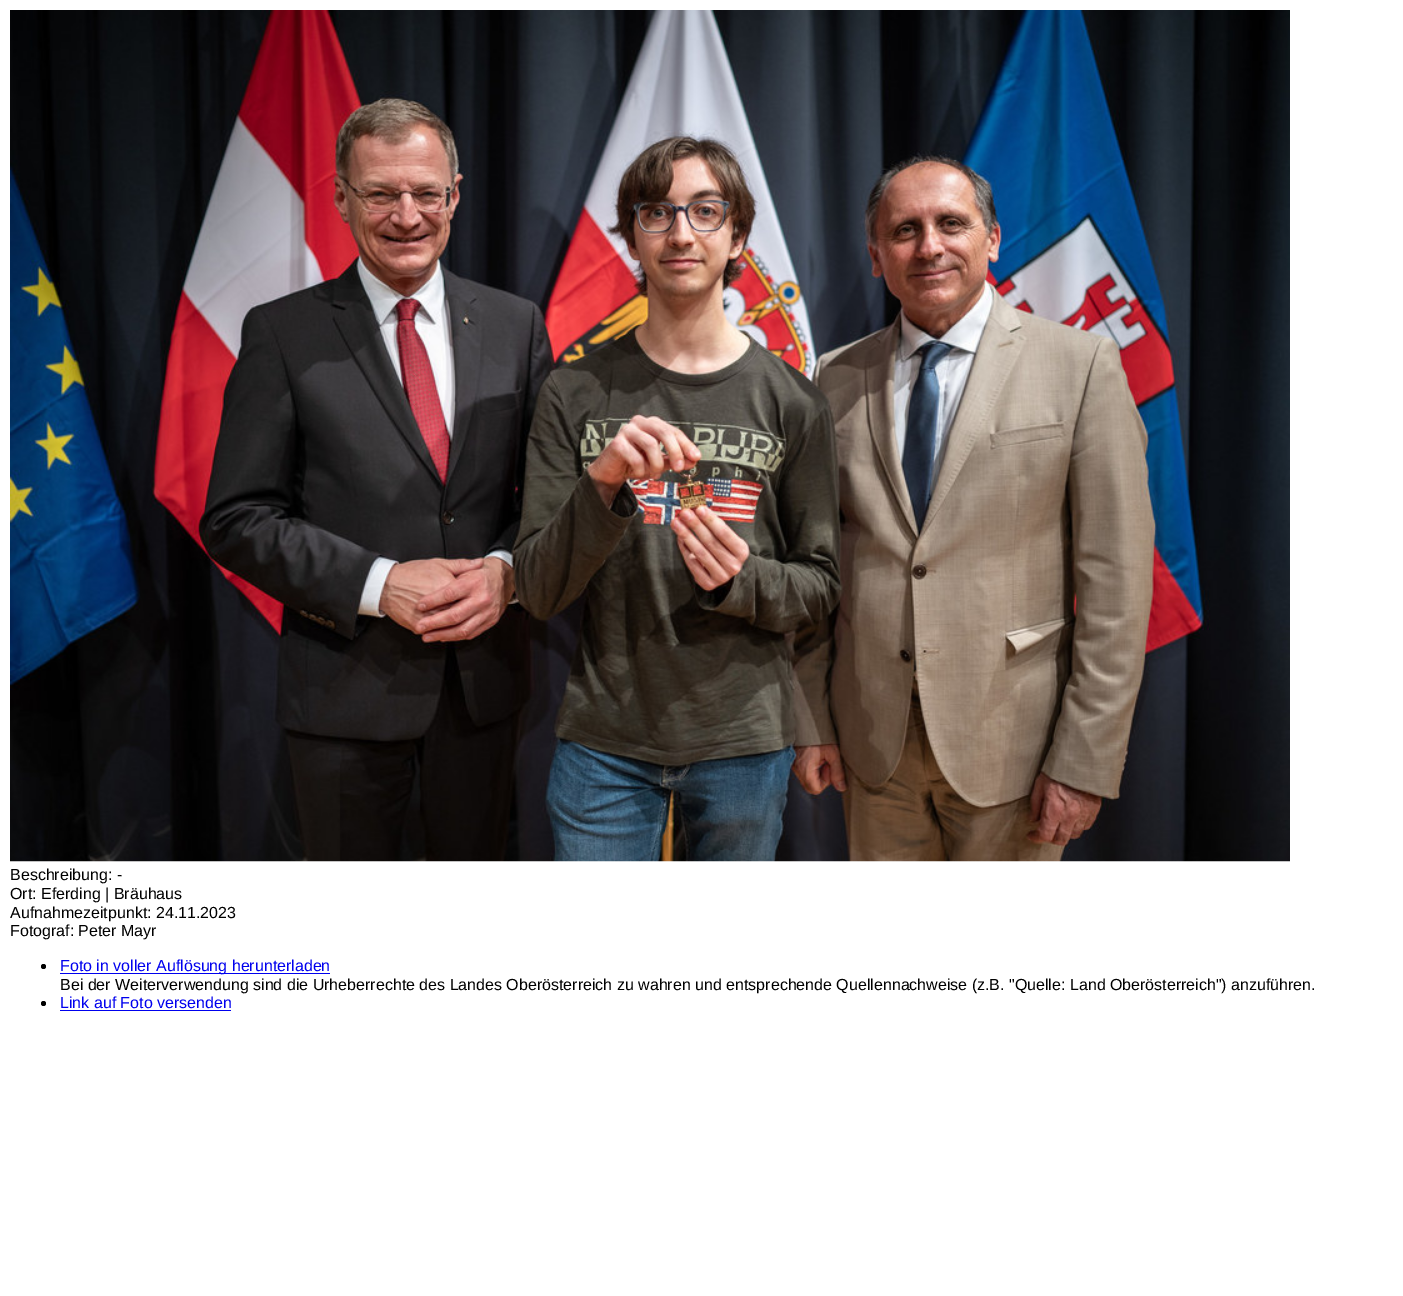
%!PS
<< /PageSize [1403 1296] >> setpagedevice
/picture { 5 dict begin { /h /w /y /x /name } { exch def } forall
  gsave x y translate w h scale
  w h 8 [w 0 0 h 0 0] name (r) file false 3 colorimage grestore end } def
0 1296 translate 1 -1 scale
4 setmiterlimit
1 setgray
0 0 1403 1296 rectfill
(img1.rgb) 10 10 1280 852 picture
/LiberationSans-Regular [16 0 0 -16 0 0] selectfont
0 setgray
10 880 moveto (Beschreibung: -) show
10 899 moveto (Ort: Eferding | Bräuhaus) show
10 918 moveto (Aufnahmezeitpunkt: 24.11.2023) show
10 936 moveto (Fotograf: Peter Mayr) show
newpath 43.5 966.5 2.5 0 360 arc closepath fill
0 0 0.933 setrgbcolor
60 973 270 1 rectfill
60 971 moveto (Foto in voller Auflösung herunterladen) show
0 setgray
60 990 moveto (Bei der Weiterverwendung sind die Urheberrechte des Landes Oberösterreich zu wahren und entsprechende Quellennachweise \(z.B. "Quelle: Land Oberösterreich"\) anzuführen.) show
newpath 43.5 1003.5 2.5 0 360 arc closepath fill
0 0 0.933 setrgbcolor
60 1008 moveto (Link auf Foto versenden) show
60 1010 171 1 rectfill
showpage
